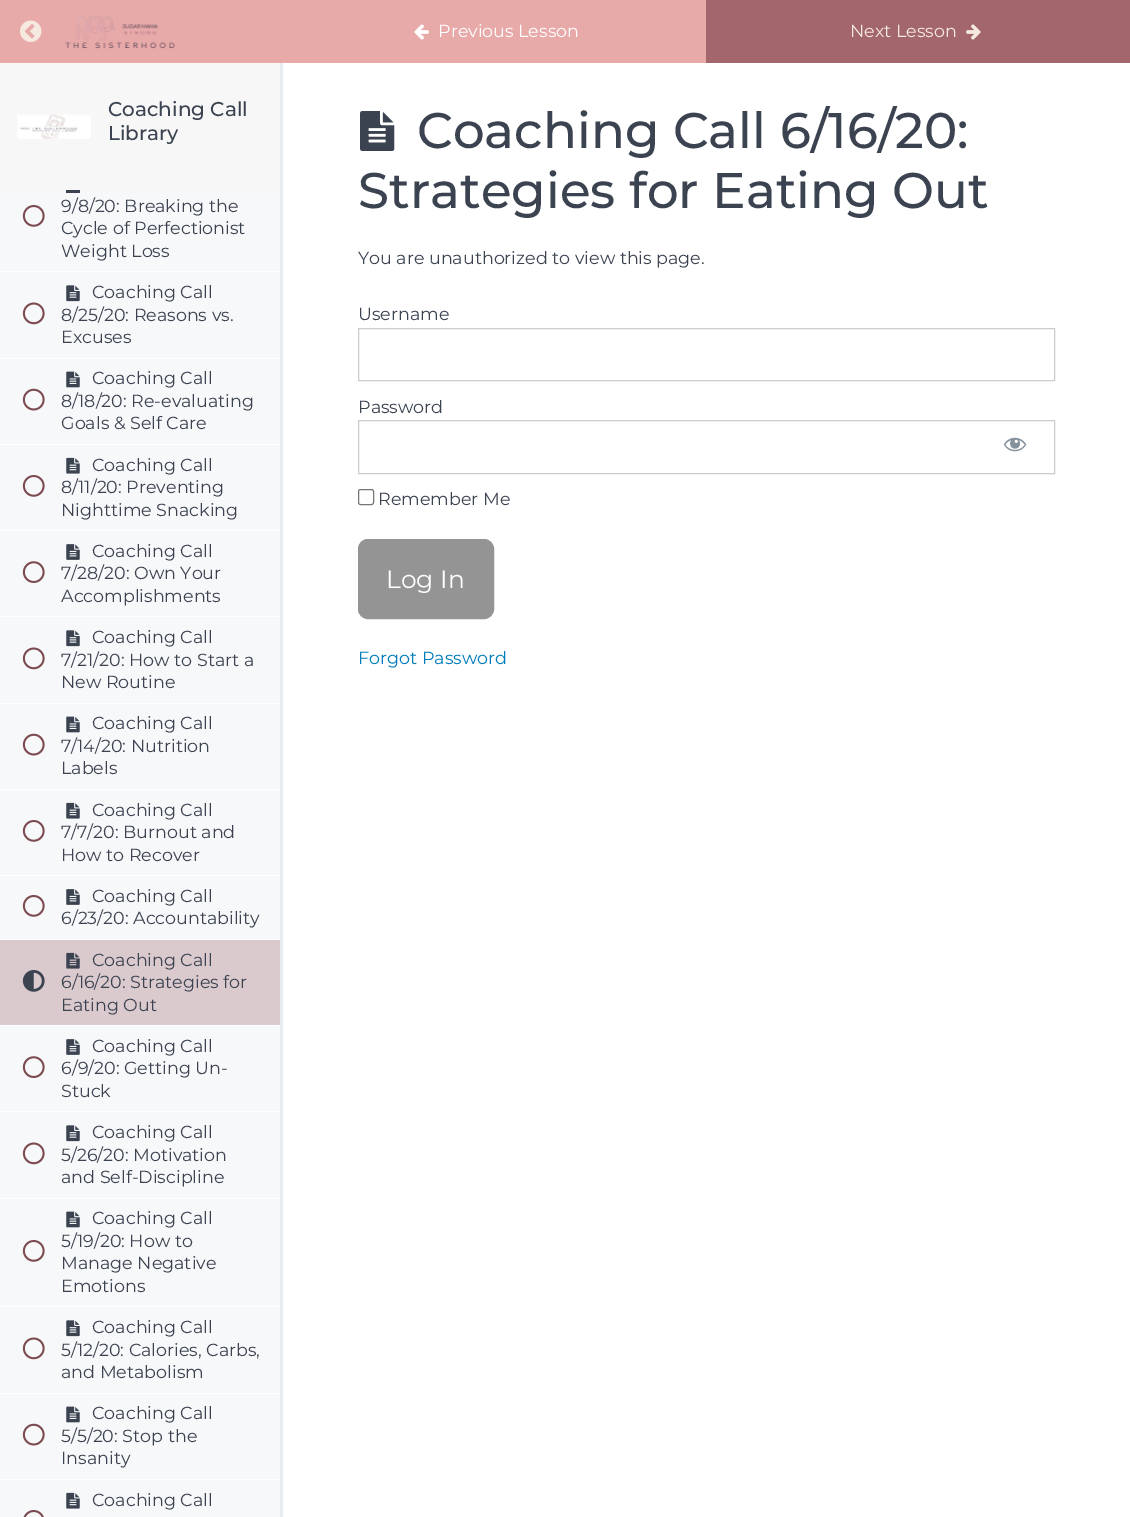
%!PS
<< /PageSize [1130 1517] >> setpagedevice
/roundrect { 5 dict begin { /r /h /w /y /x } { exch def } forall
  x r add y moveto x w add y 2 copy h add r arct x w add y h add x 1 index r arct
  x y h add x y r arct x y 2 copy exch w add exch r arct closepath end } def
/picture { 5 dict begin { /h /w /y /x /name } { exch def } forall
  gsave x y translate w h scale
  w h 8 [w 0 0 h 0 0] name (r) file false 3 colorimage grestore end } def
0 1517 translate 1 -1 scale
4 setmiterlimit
1 setgray
0 0 1130 1517 rectfill
0.91 0.663 0.663 setrgbcolor
0 0 706 63 rectfill
(img1.rgb) 20 20 22 22 picture
(img2.rgb) 65 15 110 34 picture
(img3.rgb) 414 24 15 16 picture
/Montserrat-Regular [17.5 0 0 -17.5 0 0] selectfont
1 setgray
438 37 moveto (Previous Lesson) show
0.639 0.4 0.427 setrgbcolor
706 0 424 63 rectfill
0.965 0.918 0.878 setrgbcolor
850 37 moveto (Next Lesson) show
(img4.rgb) 966 24 15 16 picture
0.969 setgray
0 63 280 127 rectfill
0.91 0.922 0.937 setrgbcolor
280 63 3 1454 rectfill
(img5.rgb) 17 114 74 25 picture
/Montserrat-Medium [20 0 0 -20 0 0] selectfont
0.231 0.263 0.318 setrgbcolor
108 116 moveto (Coaching Call) show
108 140 moveto (Library) show
0.969 0.973 0.976 setrgbcolor
0 190 280 1327 rectfill
1 setgray
0 271 280 1 rectfill
(img6.rgb) 22 205 23 22 picture
0.231 0.263 0.318 setrgbcolor
66 190 14 3 rectfill
/Montserrat-Regular [17.5 0 0 -17.5 0 0] selectfont
61 212 moveto (9/8/20: Breaking the) show
61 234 moveto (Cycle of Perfectionist) show
61 257 moveto (Weight Loss) show
1 setgray
0 358 280 1 rectfill
(img7.rgb) 22 302 23 23 picture
(img8.rgb) 66 285 14 17 picture
0.231 0.263 0.318 setrgbcolor
92 298 moveto (Coaching Call) show
61 321 moveto (8/25/20: Reasons vs.) show
61 343 moveto (Excuses) show
1 setgray
0 444 280 1 rectfill
(img9.rgb) 22 388 23 23 picture
(img10.rgb) 66 371 14 17 picture
0.231 0.263 0.318 setrgbcolor
92 384 moveto (Coaching Call) show
61 407 moveto (8/18/20: Re-evaluating) show
61 429 moveto (Goals & Self Care) show
1 setgray
0 530 280 1 rectfill
(img6.rgb) 22 475 23 22 picture
(img11.rgb) 66 457 14 17 picture
0.231 0.263 0.318 setrgbcolor
92 471 moveto (Coaching Call) show
61 493 moveto (8/11/20: Preventing) show
61 516 moveto (Nighttime Snacking) show
1 setgray
0 616 280 1 rectfill
(img12.rgb) 22 561 23 22 picture
(img13.rgb) 66 544 14 16 picture
0.231 0.263 0.318 setrgbcolor
92 557 moveto (Coaching Call) show
61 579 moveto (7/28/20: Own Your) show
61 602 moveto (Accomplishments) show
1 setgray
0 703 280 1 rectfill
(img7.rgb) 22 647 23 23 picture
(img8.rgb) 66 630 14 17 picture
0.231 0.263 0.318 setrgbcolor
92 643 moveto (Coaching Call) show
61 666 moveto (7/21/20: How to Start a) show
61 688 moveto (New Routine) show
1 setgray
0 789 280 1 rectfill
(img9.rgb) 22 733 23 23 picture
(img10.rgb) 66 716 14 17 picture
0.231 0.263 0.318 setrgbcolor
92 729 moveto (Coaching Call) show
61 752 moveto (7/14/20: Nutrition) show
61 774 moveto (Labels) show
1 setgray
0 875 280 1 rectfill
(img6.rgb) 22 820 23 22 picture
(img11.rgb) 66 802 14 17 picture
0.231 0.263 0.318 setrgbcolor
92 816 moveto (Coaching Call) show
61 838 moveto (7/7/20: Burnout and) show
61 861 moveto (How to Recover) show
1 setgray
0 939 280 1 rectfill
(img6.rgb) 22 895 23 22 picture
(img13.rgb) 66 889 14 16 picture
0.231 0.263 0.318 setrgbcolor
92 902 moveto (Coaching Call) show
61 924 moveto (6/23/20: Accountability) show
0.859 0.792 0.804 setrgbcolor
0 940 280 85 rectfill
1 setgray
0 1025 280 1 rectfill
(img14.rgb) 22 970 23 22 picture
(img15.rgb) 66 952 14 17 picture
0.231 0.263 0.318 setrgbcolor
92 966 moveto (Coaching Call) show
61 988 moveto (6/16/20: Strategies for) show
61 1011 moveto (Eating Out) show
1 setgray
0 1111 280 1 rectfill
(img12.rgb) 22 1056 23 22 picture
(img13.rgb) 66 1039 14 16 picture
0.231 0.263 0.318 setrgbcolor
92 1052 moveto (Coaching Call) show
61 1074 moveto (6/9/20: Getting Un-) show
61 1097 moveto (Stuck) show
1 setgray
0 1198 280 1 rectfill
(img7.rgb) 22 1142 23 23 picture
(img8.rgb) 66 1125 14 17 picture
0.231 0.263 0.318 setrgbcolor
92 1138 moveto (Coaching Call) show
61 1161 moveto (5/26/20: Motivation) show
61 1183 moveto (and Self-Discipline) show
1 setgray
0 1306 280 1 rectfill
(img6.rgb) 22 1240 23 22 picture
(img10.rgb) 66 1211 14 17 picture
0.231 0.263 0.318 setrgbcolor
92 1224 moveto (Coaching Call) show
61 1247 moveto (5/19/20: How to) show
61 1269 moveto (Manage Negative) show
61 1292 moveto (Emotions) show
1 setgray
0 1393 280 1 rectfill
(img7.rgb) 22 1337 23 23 picture
(img8.rgb) 66 1320 14 17 picture
0.231 0.263 0.318 setrgbcolor
92 1333 moveto (Coaching Call) show
61 1356 moveto (5/12/20: Calories, Carbs,) show
61 1378 moveto (and Metabolism) show
1 setgray
0 1479 280 1 rectfill
(img9.rgb) 22 1423 23 23 picture
(img10.rgb) 66 1406 14 17 picture
0.231 0.263 0.318 setrgbcolor
92 1419 moveto (Coaching Call) show
61 1442 moveto (5/5/20: Stop the) show
61 1464 moveto (Insanity) show
(img11.rgb) 66 1492 14 17 picture
92 1506 moveto (Coaching Call) show
(img16.rgb) 23 1510 21 7 picture
(img17.rgb) 360 111 35 40 picture
/Montserrat-Medium [50 0 0 -50 0 0] selectfont
417 148 moveto (Coaching Call 6/16/20:) show
358 208 moveto (Strategies for Eating Out) show
/Montserrat-Regular [17.5 0 0 -17.5 0 0] selectfont
358 264 moveto (You are unauthorized to view this page.) show
358 320 moveto (Username) show
0.8 setgray
358.5 328.5 696 52 rectstroke
0.231 0.263 0.318 setrgbcolor
358 413 moveto (Password) show
0.8 setgray
358.5 420.5 696 53 rectstroke
(img18.rgb) 1003 437 24 15 picture
0.463 setgray
358.5 489.5 15 15 2 roundrect stroke
0.231 0.263 0.318 setrgbcolor
378 505 moveto (Remember Me) show
0.58 setgray
358.5 539.5 135 79 9.5 roundrect gsave fill grestore
stroke
/Montserrat-Regular [25 0 0 -25 0 0] selectfont
1 setgray
386 588 moveto (Log In) show
/Montserrat-Regular [17.5 0 0 -17.5 0 0] selectfont
0 0.486 0.729 setrgbcolor
358 664 moveto (Forgot Password) show
showpage
